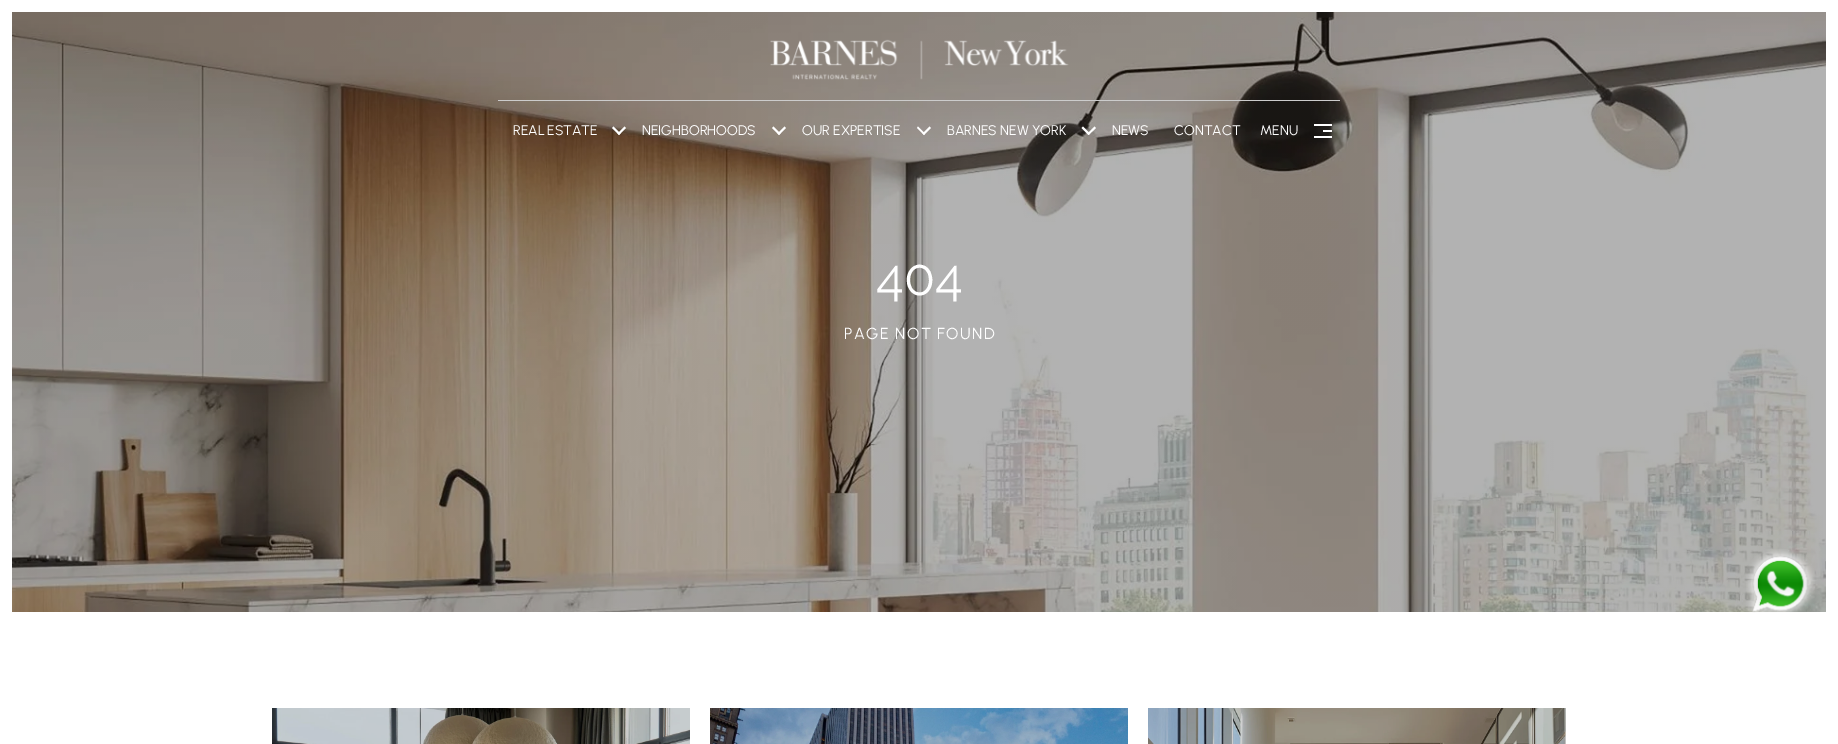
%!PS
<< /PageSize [1838 744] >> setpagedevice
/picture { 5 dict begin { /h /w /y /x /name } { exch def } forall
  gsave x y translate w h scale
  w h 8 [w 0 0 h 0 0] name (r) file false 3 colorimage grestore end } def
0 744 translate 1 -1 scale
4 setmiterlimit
1 setgray
0 0 1838 744 rectfill
(img2.rgb) 12 12 1814 600 picture
(img1.rgb) 770 39 299 41 picture
0.8 setgray
498 100 842 1 rectfill
/Urbanist-Regular [14 0 0 -14 0 0] selectfont
1 setgray
513 135 moveto -1 0 32 (REAL ESTATE) widthshow
newpath 624.5 126.5 moveto 626 128 lineto 619 135 lineto 617.5 133.5 lineto closepath fill
newpath 613.5 126.5 moveto 620.5 133.5 lineto 619 135 lineto 612 128 lineto closepath fill
642 135 moveto (NEIGHBORHOODS) show
newpath 784.5 126.5 moveto 786 128 lineto 779 135 lineto 777.5 133.5 lineto closepath fill
newpath 773.5 126.5 moveto 780.5 133.5 lineto 779 135 lineto 772 128 lineto closepath fill
802 135 moveto (OUR EXPERTISE) show
newpath 929.5 126.5 moveto 931 128 lineto 924 135 lineto 922.5 133.5 lineto closepath fill
newpath 918 126.5 moveto 925 133.5 lineto 924 135 lineto 917 128 lineto closepath fill
947 135 moveto (BARNES NEW YORK) show
newpath 1094.5 126.5 moveto 1096 128 lineto 1088.5 135 lineto 1087.5 133.5 lineto closepath fill
newpath 1083 126.5 moveto 1090 133.5 lineto 1088.5 135 lineto 1081.5 128 lineto closepath fill
1112 135 moveto (NEWS) show
1174 135 moveto (CONTACT) show
1260 135 moveto (MENU) show
1314 124 18 2 rectfill
1323 130 9 2 rectfill
1314 136 18 2 rectfill
/Raleway-Regular [51 0 0 -51 0 0] selectfont
876 295 moveto (404) show
/Urbanist-Regular [16 0 0 -16 0 0] selectfont
844 339 moveto -1 0 32 1.6 0 (PAGE NOT FOUND) awidthshow
(img3.rgb) 1746 549 69 64 picture
(img4.rgb) 272 708 418 36 picture
(img5.rgb) 710 708 418 36 picture
(img6.rgb) 1148 708 418 36 picture
showpage
